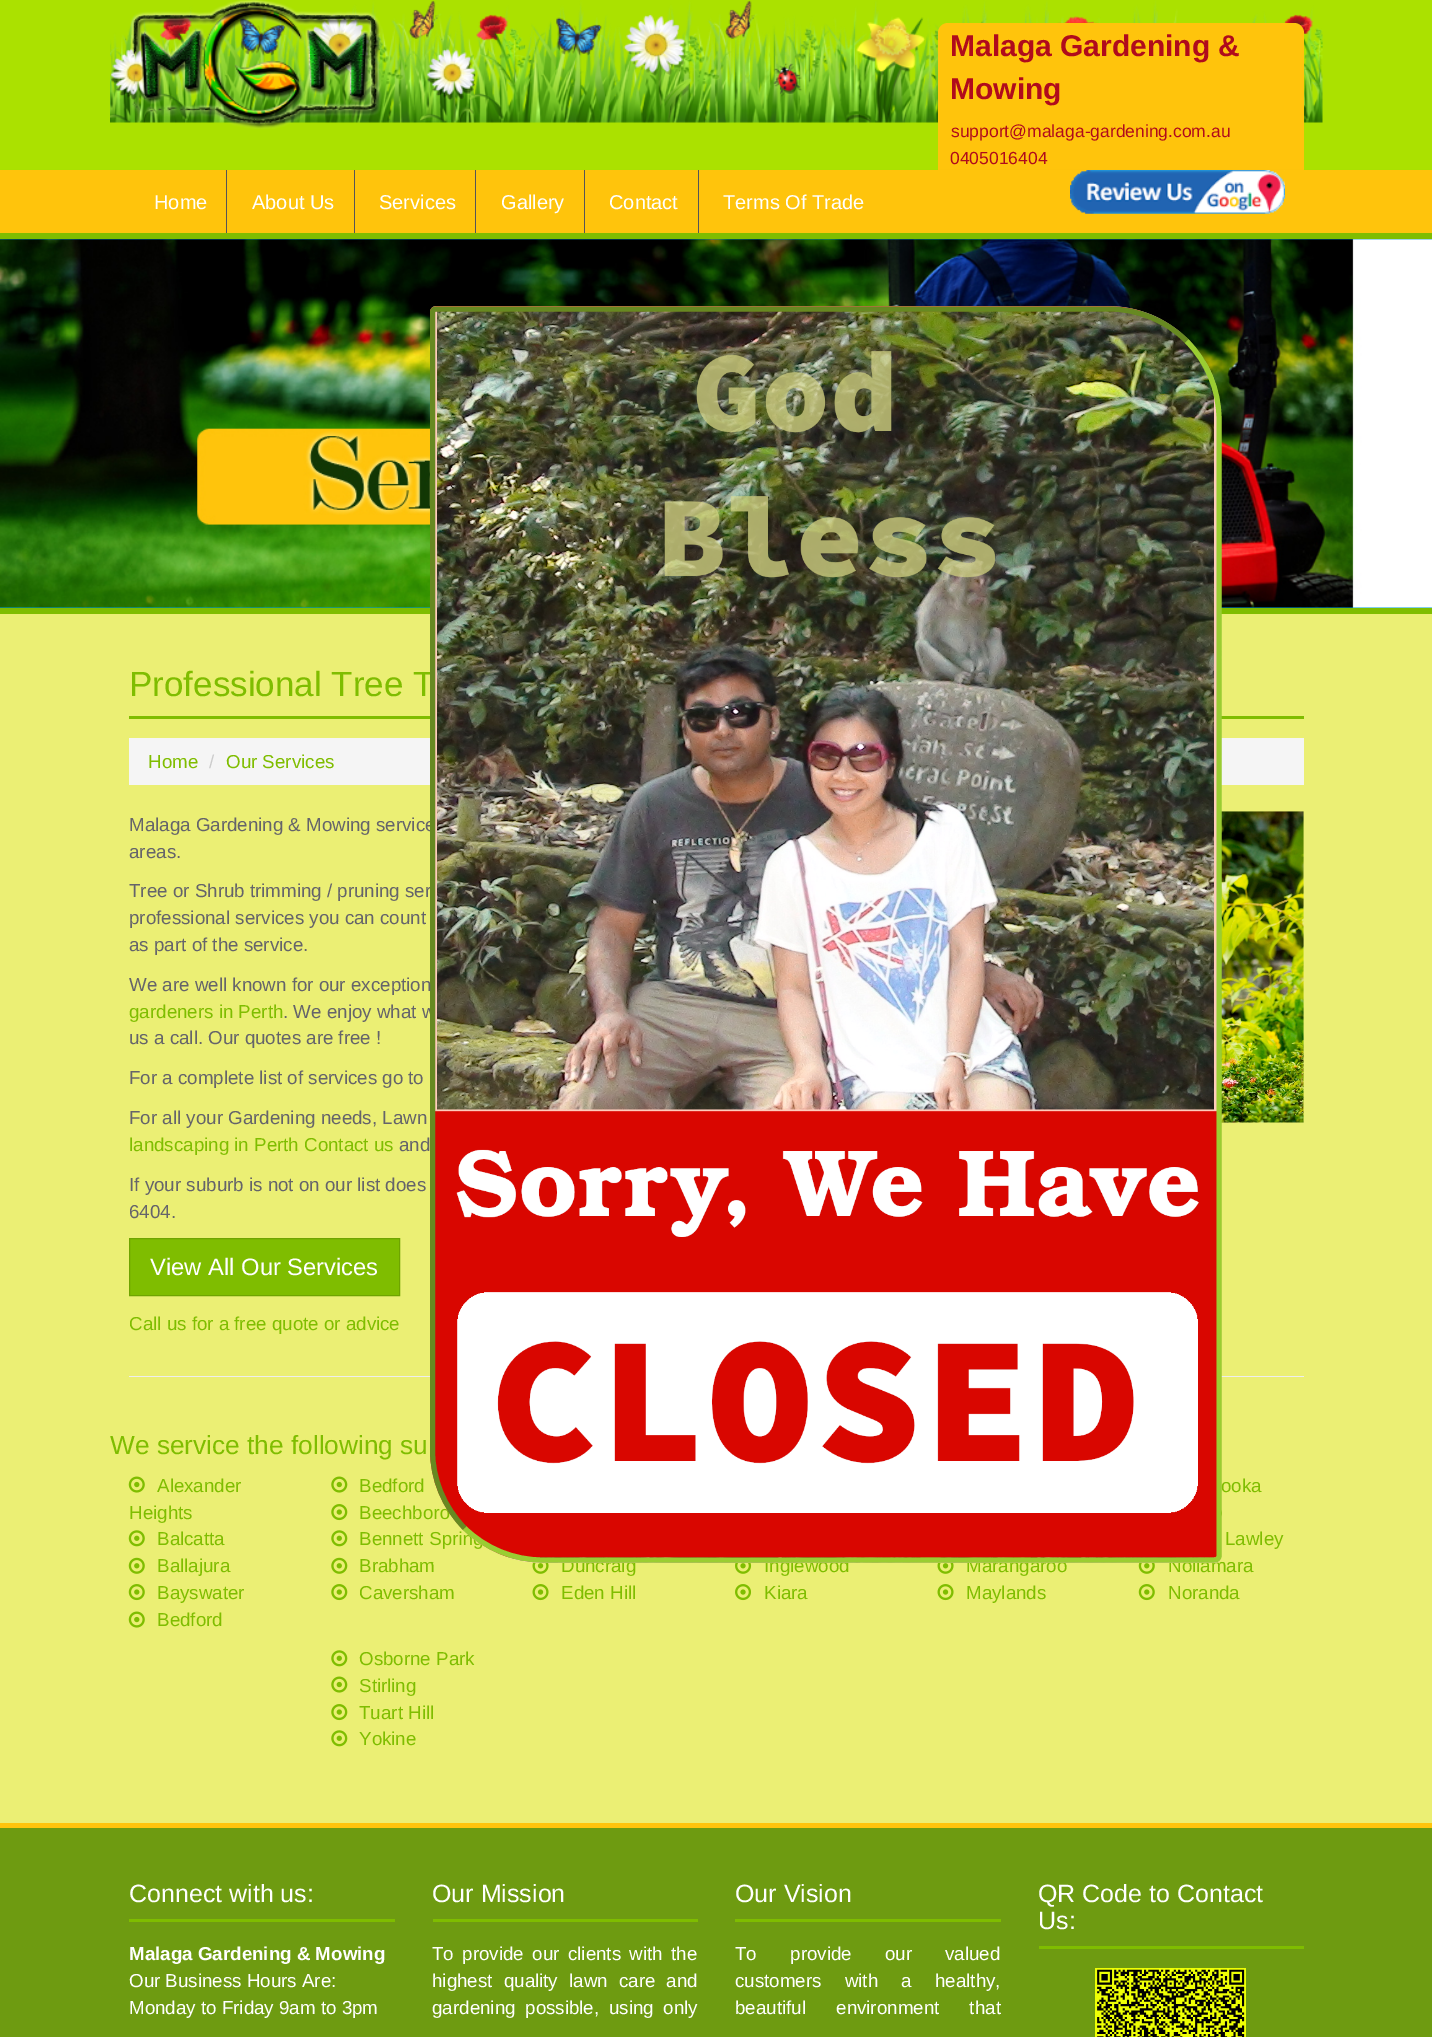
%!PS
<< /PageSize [1432 2037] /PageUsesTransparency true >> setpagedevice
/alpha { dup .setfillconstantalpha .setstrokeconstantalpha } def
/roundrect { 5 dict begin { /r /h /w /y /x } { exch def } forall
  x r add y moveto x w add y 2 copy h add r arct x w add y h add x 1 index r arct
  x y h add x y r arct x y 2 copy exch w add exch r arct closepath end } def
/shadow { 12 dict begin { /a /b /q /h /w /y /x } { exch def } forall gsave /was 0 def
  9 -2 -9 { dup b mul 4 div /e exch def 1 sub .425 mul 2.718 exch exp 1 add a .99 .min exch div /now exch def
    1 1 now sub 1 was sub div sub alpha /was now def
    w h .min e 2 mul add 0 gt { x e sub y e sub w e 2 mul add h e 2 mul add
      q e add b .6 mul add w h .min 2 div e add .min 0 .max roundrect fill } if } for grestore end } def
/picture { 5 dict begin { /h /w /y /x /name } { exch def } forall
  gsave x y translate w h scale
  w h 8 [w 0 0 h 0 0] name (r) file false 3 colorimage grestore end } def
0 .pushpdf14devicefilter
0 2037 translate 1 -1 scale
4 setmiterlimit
0.922 0.937 0.455 setrgbcolor
0 0 1432 2037 rectfill
0.671 0.882 0 setrgbcolor
0 0 1432 170 rectfill
(img1.rgb) 110 0 1213 123 picture
(img2.rgb) 130 0 252 129 picture
1 0.769 0.047 setrgbcolor
newpath 948 23 moveto 1294 23 lineto 1299.5 23 1304 27.5 1304 33 curveto 1304 170 lineto 938 170 lineto 938 33 lineto 938 27.5 942.5 23 948 23 curveto closepath fill
/LiberationSans-Bold [30 0 0 -30 0 0] selectfont
0.69 0.043 0.11 setrgbcolor
950 56 moveto (Malaga Gardening &) show
950 99 moveto (Mowing) show
/LiberationSans-Regular [17.5 0 0 -17.5 0 0] selectfont
951 137 moveto (support@malaga-gardening.com.au) show
950 164 moveto (0405016404) show
0 0.62 0.867 setrgbcolor
0 239 1432 369 rectfill
0 setgray
0 174 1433 69 0 2 0.1 shadow
1 0.769 0.047 setrgbcolor
0 170 1432 63 rectfill
0.498 0.741 0 setrgbcolor
0 233 1432 6 rectfill
0.333 0.329 0.349 setrgbcolor
226 170 1 63 rectfill
/LiberationSans-Regular [20 0 0 -20 0 0] selectfont
1 setgray
154 209 moveto (Home) show
0.333 0.329 0.349 setrgbcolor
354 170 1 63 rectfill
1 setgray
252 209 moveto (About Us) show
0.333 0.329 0.349 setrgbcolor
475 170 1 63 rectfill
1 setgray
379 209 moveto (Services) show
0.333 0.329 0.349 setrgbcolor
584 170 1 63 rectfill
1 setgray
501 209 moveto (Gallery) show
0.333 0.329 0.349 setrgbcolor
698 170 1 63 rectfill
1 setgray
609 209 moveto (Contact) show
723 209 moveto (Terms Of Trade) show
(img3.rgb) 1070 170 215 44 picture
0.498 0.741 0 setrgbcolor
0 608 1432 6 rectfill
(img4.rgb) 0 239 1432 369 picture
129 716 1175 3 rectfill
/LiberationSans-Regular [35 0 0 -35 0 0] selectfont
129 696 moveto (Professional Tree T) show
0.961 setgray
129 738 1175 47 rectfill
/LiberationSans-Regular [18.75 0 0 -18.75 0 0] selectfont
0.396 0.392 0.416 setrgbcolor
129 831 moveto (Malaga Gardening & Mowing service) show
129 897 moveto (Tree or Shrub trimming / pruning ser) show
283 1018 moveto (. We enjoy what w) show
0.933 setgray
129 1376 1175 1 rectfill
0.498 0.741 0 setrgbcolor
359 1519 moveto (Beechboro) show
359 1545 moveto (Bennett Sprin) show
359 1572 moveto (Brabham) show
(img15.rgb) 532 1562 17 12 picture
561 1572 moveto (Duncraig) show
764 1572 moveto (Inglewood) show
966 1572 moveto (Marangaroo) show
1168 1572 moveto (Nollamara) show
1 0.8 0.733 setrgbcolor
newpath 436 306 moveto 1108 306 lineto 1170.5 306 1221 356.5 1221 419 curveto 1221 1557 lineto 1221 1560.5 1218.5 1563 1215 1563 curveto 543 1563 lineto 480.5 1563 430 1512.5 430 1450 curveto 430 312 lineto 430 308.5 432.5 306 436 306 curveto closepath fill
(img6.rgb) 1221 811 83 312 picture
0.498 0.741 0 setrgbcolor
1221 1492 moveto (ooka) show
(img5.rgb) 430 306 792 1257 picture
0.604 0.804 0.196 setrgbcolor
5 setlinewidth
newpath 1186.5 341 moveto 1207 361.5 1219 389.5 1219 419 curveto 1219 1556 lineto 1219 1557 1218.5 1558 1217.5 1559 curveto 1217 1559.5 1216 1560 1215 1560 curveto 542.5 1560 lineto 513.5 1560 485.5 1548.5 464.5 1528 curveto stroke
0.404 0.537 0.129 setrgbcolor
newpath 464.5 1528 moveto 444 1507 432.5 1479 432.5 1450 curveto 432.5 312.5 lineto 432.5 311.5 433 310.5 433.5 310 curveto 434.5 309 435.5 309 436 309 curveto 1109 309 lineto 1138 309 1166 320.5 1186.5 341 curveto stroke
0.498 0.741 0 setrgbcolor
148 768 moveto (Home) show
0.8 setgray
209 768 moveto (/) show
0.498 0.741 0 setrgbcolor
226 768 moveto (Our Services) show
0.396 0.392 0.416 setrgbcolor
129 858 moveto (areas.) show
129 924 moveto (professional services you can count) show
129 951 moveto (as part of the service.) show
129 991 moveto (We are well known for our exception) show
0.498 0.741 0 setrgbcolor
129 1018 moveto (gardeners in Perth) show
0.396 0.392 0.416 setrgbcolor
129 1044 moveto (us a call. Our quotes are free !) show
129 1084 moveto (For a complete list of services go to) show
129 1124 moveto (For all your Gardening needs, Lawn) show
0.498 0.741 0 setrgbcolor
129 1151 moveto (landscaping in Perth Contact us) show
0.396 0.392 0.416 setrgbcolor
399 1151 moveto (and) show
129 1191 moveto (If your suburb is not on our list does) show
129 1218 moveto (6404.) show
0.498 0.741 0 setrgbcolor
newpath 129.5 1238.5 moveto 399.5 1238.5 lineto 399.5 1295.5 lineto 129.5 1295.5 lineto closepath gsave fill grestore
0.431 0.643 0 setrgbcolor
1 setlinewidth
stroke
/LiberationSans-Regular [23.75 0 0 -23.75 0 0] selectfont
1 setgray
150 1275 moveto (View All Our Services) show
/LiberationSans-Regular [18.75 0 0 -18.75 0 0] selectfont
0.498 0.741 0 setrgbcolor
129 1330 moveto (Call us for a free quote or advice) show
/LiberationSans-Regular [26.25 0 0 -26.25 0 0] selectfont
110 1454 moveto (We service the following su) show
(img7.rgb) 128 1476 17 17 picture
/LiberationSans-Regular [18.75 0 0 -18.75 0 0] selectfont
157 1492 moveto (Alexander) show
129 1519 moveto (Heights) show
(img8.rgb) 128 1530 17 17 picture
157 1545 moveto (Balcatta) show
(img9.rgb) 128 1557 17 17 picture
157 1572 moveto (Ballajura) show
(img10.rgb) 128 1584 17 17 picture
157 1599 moveto (Bayswater) show
(img7.rgb) 128 1611 17 17 picture
157 1626 moveto (Bedford) show
(img11.rgb) 331 1476 17 17 picture
359 1492 moveto (Bedford) show
(img12.rgb) 331 1504 17 17 picture
(img13.rgb) 331 1530 17 17 picture
(img14.rgb) 331 1557 17 17 picture
(img12.rgb) 331 1584 17 17 picture
359 1599 moveto (Caversham) show
(img16.rgb) 532 1584 17 17 picture
561 1599 moveto (Eden Hill) show
(img17.rgb) 735 1563 17 11 picture
(img18.rgb) 735 1584 16 17 picture
764 1599 moveto (Kiara) show
(img19.rgb) 937 1563 17 11 picture
(img16.rgb) 937 1584 17 17 picture
966 1599 moveto (Maylands) show
1225 1545 moveto (Lawley) show
(img20.rgb) 1138 1563 17 11 picture
(img10.rgb) 1138 1584 17 17 picture
1168 1599 moveto (Noranda) show
(img13.rgb) 331 1650 17 17 picture
359 1665 moveto (Osborne Park) show
(img11.rgb) 331 1676 17 17 picture
359 1692 moveto (Stirling) show
(img12.rgb) 331 1704 17 17 picture
359 1719 moveto (Tuart Hill) show
(img13.rgb) 331 1730 17 17 picture
359 1745 moveto (Yokine) show
0.431 0.608 0.067 setrgbcolor
0 1828 1432 209 rectfill
1 0.769 0.047 setrgbcolor
0 1823 1432 5 rectfill
0.498 0.741 0 setrgbcolor
129 1919 266 3 rectfill
/LiberationSans-Regular [25 0 0 -25 0 0] selectfont
1 setgray
129 1902 moveto (Connect with us:) show
/LiberationSans-Bold [18.75 0 0 -18.75 0 0] selectfont
129 1960 moveto (Malaga Gardening & Mowing) show
/LiberationSans-Regular [18.75 0 0 -18.75 0 0] selectfont
129 1987 moveto (Our Business Hours Are:) show
129 2014 moveto (Monday to Friday 9am to 3pm) show
0.498 0.741 0 setrgbcolor
433 1919 265 3 rectfill
/LiberationSans-Regular [25 0 0 -25 0 0] selectfont
1 setgray
432 1902 moveto (Our Mission) show
/LiberationSans-Regular [18.75 0 0 -18.75 0 0] selectfont
432 1960 moveto 3.25 0 32 (To provide our clients with the) widthshow
432 1987 moveto 6 0 32 (highest quality lawn care and) widthshow
432 2014 moveto 4.5 0 32 (gardening possible, using only) widthshow
0.498 0.741 0 setrgbcolor
735 1919 266 3 rectfill
/LiberationSans-Regular [25 0 0 -25 0 0] selectfont
1 setgray
735 1902 moveto (Our Vision) show
/LiberationSans-Regular [18.75 0 0 -18.75 0 0] selectfont
735 1960 moveto 28 0 32 (To provide our valued) widthshow
735 1987 moveto 18 0 32 (customers with a healthy,) widthshow
735 2014 moveto 25 0 32 (beautiful environment that) widthshow
0.498 0.741 0 setrgbcolor
1039 1946 265 3 rectfill
/LiberationSans-Regular [25 0 0 -25 0 0] selectfont
1 setgray
1038 1902 moveto (QR Code to Contact) show
1038 1929 moveto (Us:) show
(img21.rgb) 1095 1968 151 69 picture
.poppdf14devicefilter showpage
